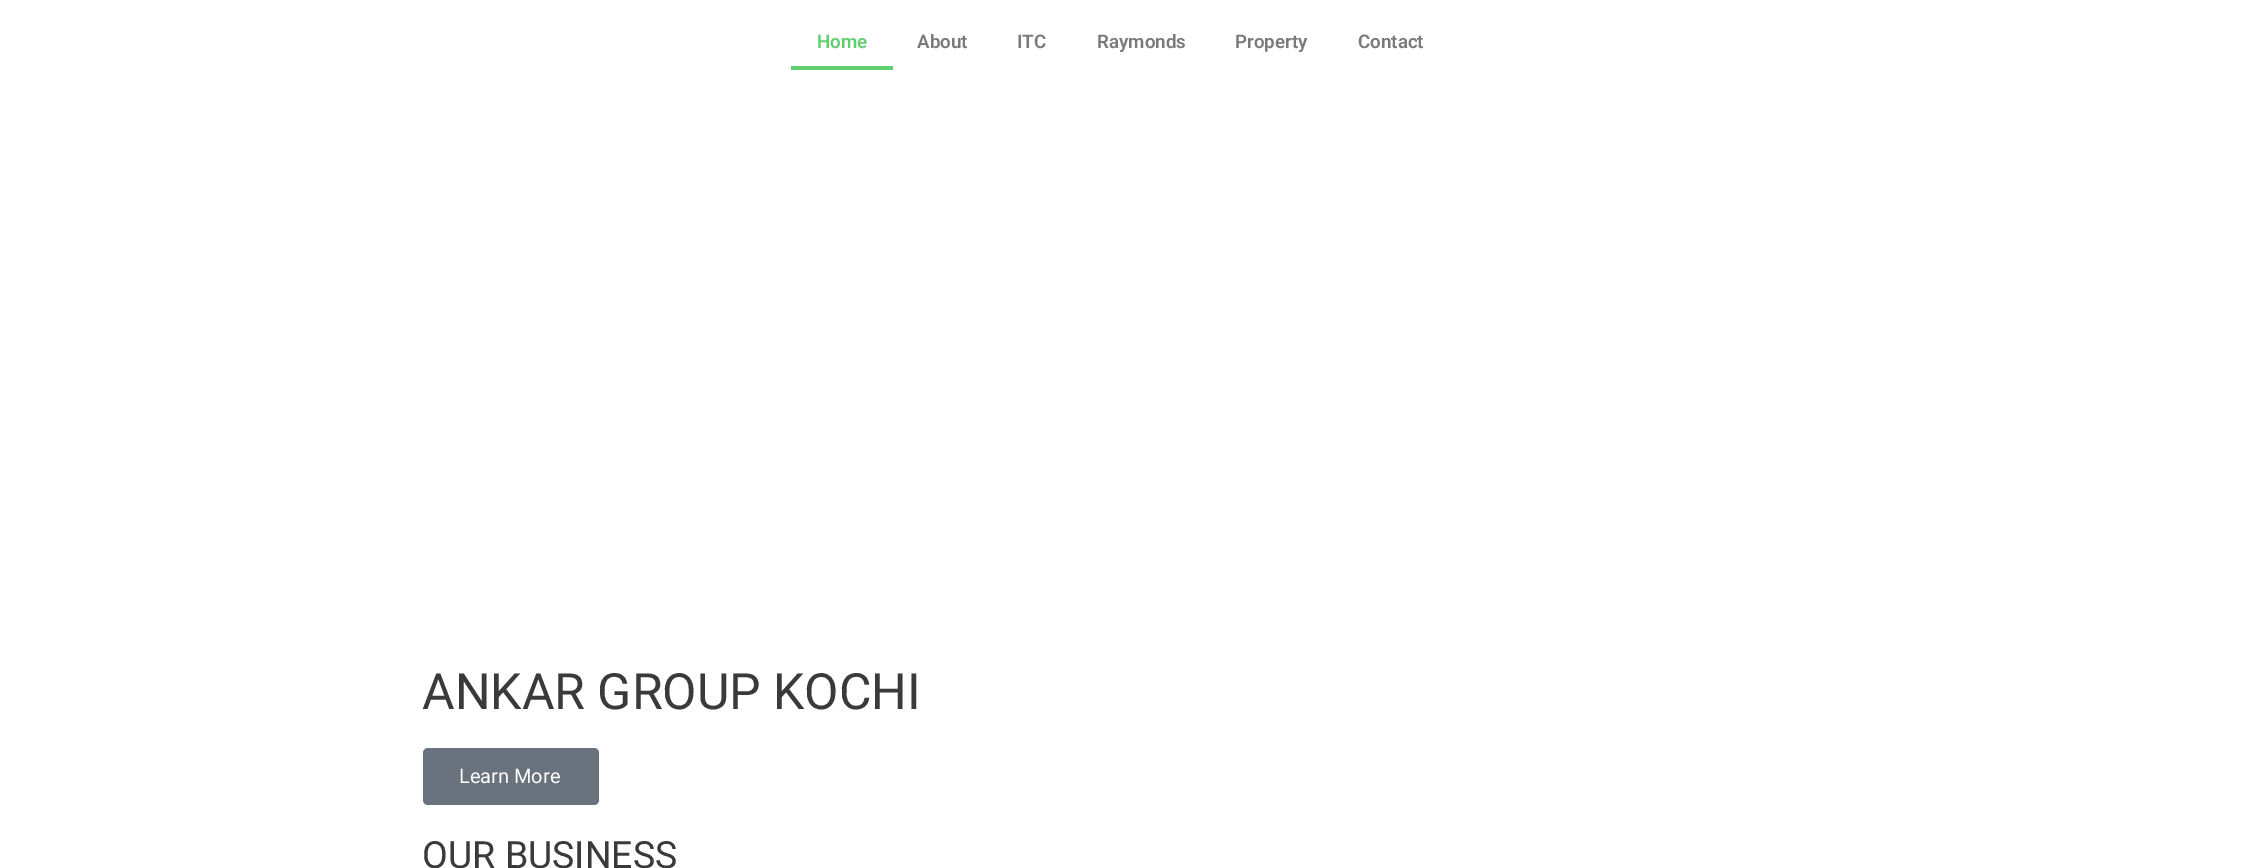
%!PS
<< /PageSize [2243 868] >> setpagedevice
/roundrect { 5 dict begin { /r /h /w /y /x } { exch def } forall
  x r add y moveto x w add y 2 copy h add r arct x w add y h add x 1 index r arct
  x y h add x y r arct x y 2 copy exch w add exch r arct closepath end } def
0 868 translate 1 -1 scale
4 setmiterlimit
1 setgray
0 0 2243 868 rectfill
/Roboto-SemiBold [18.75 0 0 -18.75 0 0] selectfont
0.38 0.808 0.439 setrgbcolor
817 48 moveto (Home) show
791 66 102 4 rectfill
0.478 setgray
917 48 moveto (About) show
1017 48 moveto (ITC) show
1097 48 moveto (Raymonds) show
1235 48 moveto (Property) show
1358 48 moveto (Contact) show
/Roboto-Regular [50 0 0 -50 0 0] selectfont
0.227 setgray
422 709 moveto (ANKAR GROUP KOCHI) show
0.412 0.447 0.49 setrgbcolor
423 748 176 57 5 roundrect fill
/Roboto-Regular [20 0 0 -20 0 0] selectfont
1 setgray
459 783 moveto (Learn More) show
/Roboto-Regular [37.5 0 0 -37.5 0 0] selectfont
0.227 setgray
422 868 moveto (OUR BUSINESS) show
showpage
